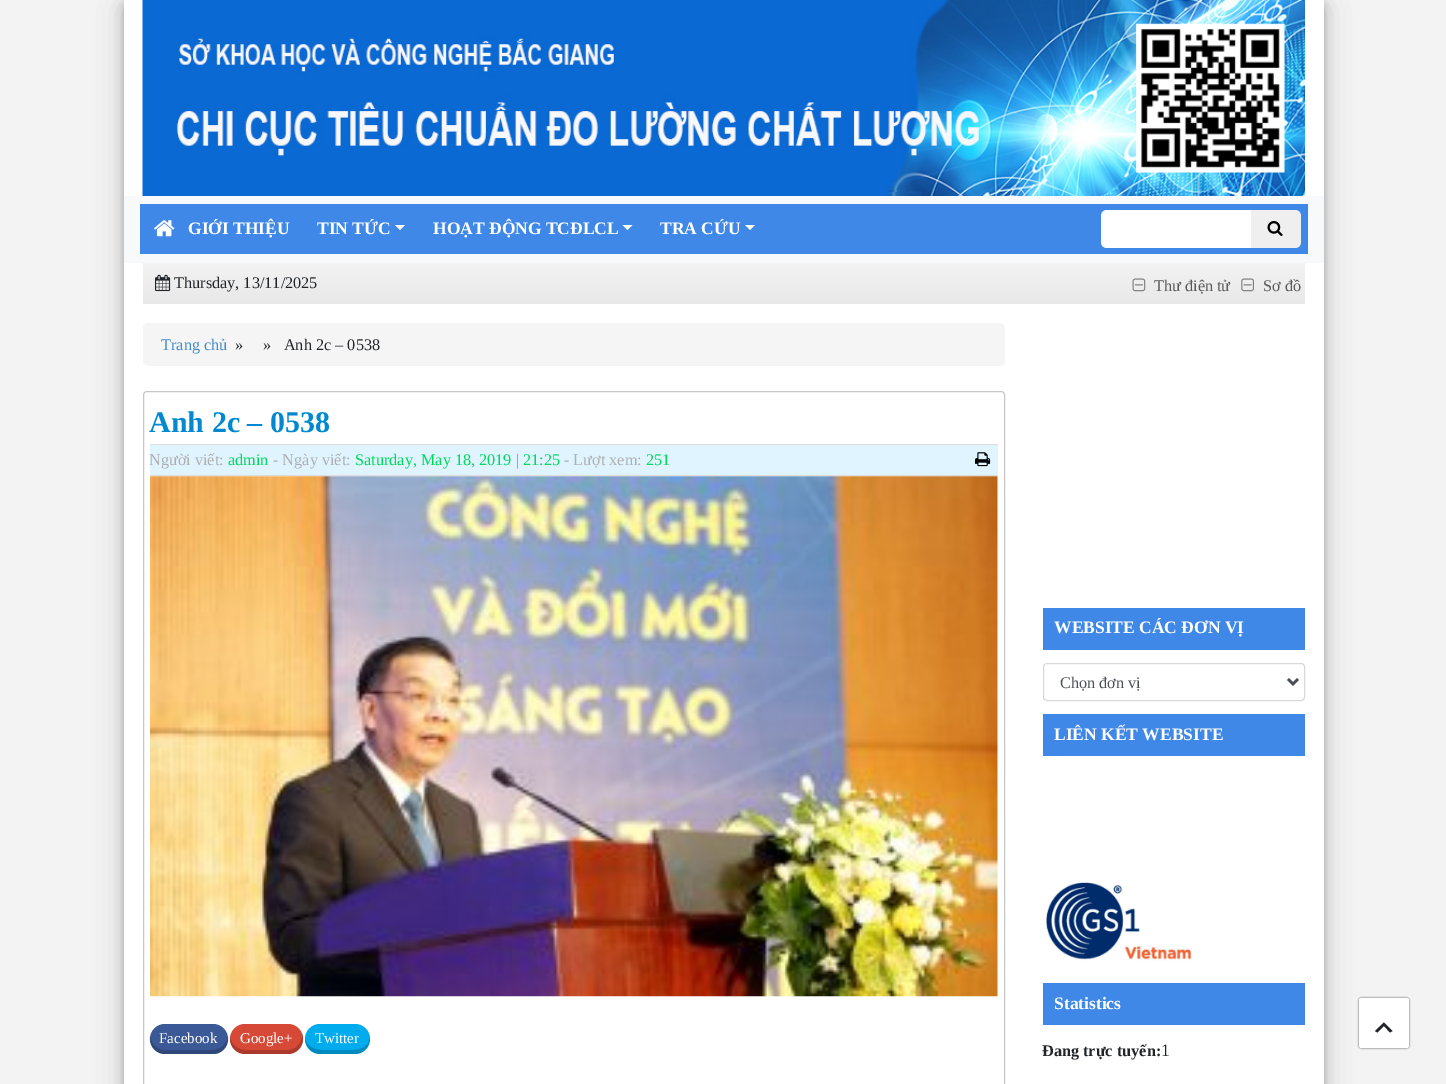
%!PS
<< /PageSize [1446 1084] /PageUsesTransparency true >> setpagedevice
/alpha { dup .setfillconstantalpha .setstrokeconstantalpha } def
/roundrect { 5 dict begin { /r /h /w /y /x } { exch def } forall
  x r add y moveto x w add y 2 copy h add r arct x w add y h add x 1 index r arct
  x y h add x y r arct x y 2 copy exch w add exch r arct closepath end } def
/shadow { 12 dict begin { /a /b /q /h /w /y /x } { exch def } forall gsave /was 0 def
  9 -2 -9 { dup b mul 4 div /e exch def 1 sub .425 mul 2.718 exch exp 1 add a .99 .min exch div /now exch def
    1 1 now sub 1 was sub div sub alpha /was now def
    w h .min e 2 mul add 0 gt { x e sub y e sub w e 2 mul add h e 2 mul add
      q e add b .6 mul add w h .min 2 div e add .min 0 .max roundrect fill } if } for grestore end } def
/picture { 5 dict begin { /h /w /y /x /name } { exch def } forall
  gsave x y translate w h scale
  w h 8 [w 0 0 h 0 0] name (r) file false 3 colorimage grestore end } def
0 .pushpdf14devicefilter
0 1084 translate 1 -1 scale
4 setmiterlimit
0.953 setgray
0 0 1446 1084 rectfill
0 setgray
124 8 1200 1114 0 12.5 0.19 shadow
124 5 1200 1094 0 5 0.2 shadow
1 setgray
124 0 1200 1084 rectfill
(img1.rgb) 142 0 1163 196 picture
0.973 0.976 0.98 setrgbcolor
124 196 1200 67 rectfill
0.247 0.533 0.91 setrgbcolor
140 204 1168 50 rectfill
(img2.rgb) 154 220 21 17 picture
/LiberationSerif-Bold [17.5 0 0 -17.5 0 0] selectfont
1 setgray
188 234 moveto (GIỚI THIỆU) show
317 234 moveto (TIN TỨC) show
newpath 395 225 moveto 405 225 lineto 400 230 lineto closepath fill
433 234 moveto (HOẠT ĐỘNG TCĐLCL) show
newpath 622.5 225 moveto 632.5 225 lineto 627.5 230 lineto closepath fill
660 234 moveto (TRA CỨU) show
newpath 745 225 moveto 755 225 lineto 750 230 lineto closepath fill
newpath 1107 210 moveto 1251 210 lineto 1251 248 lineto 1107 248 lineto 1103.5 248 1101 245.5 1101 242 curveto 1101 216 lineto 1101 212.5 1103.5 210 1107 210 curveto closepath fill
0.937 setgray
newpath 1251 210 moveto 1295 210 lineto 1298.5 210 1301 212.5 1301 216 curveto 1301 242 lineto 1301 245.5 1298.5 248 1295 248 curveto 1251 248 lineto closepath fill
(img3.rgb) 1267 221 16 16 picture
gsave newpath 143 263 moveto 1305 263 lineto 1305 304 lineto 143 304 lineto closepath clip newpath
<< /ShadingType 2 /ColorSpace /DeviceRGB /Coords [724 262 724 304] /Extend [true true] /Function << /FunctionType 2 /Domain [0 1] /C0 [0.953 0.953 0.953] /C1 [0.91 0.91 0.91] /N 1 >> >> shfill grestore
(img4.rgb) 155 274 16 18 picture
/LiberationSerif-Regular [16.25 0 0 -16.25 0 0] selectfont
0.129 0.145 0.161 setrgbcolor
174 288 moveto (Thursday, 13/11/2025) show
(img5.rgb) 1132 278 14 14 picture
0.345 setgray
1154 291 moveto (Thư điện tử) show
(img6.rgb) 1241 278 13 14 picture
1263 291 moveto (Sơ đồ) show
0.961 setgray
143 323 862 43 5 roundrect fill
0.259 0.545 0.792 setrgbcolor
161 350 moveto (Trang chủ) show
0.129 0.145 0.161 setrgbcolor
235 350 moveto (»     »   Anh 2c – 0538) show
0.776 setgray
143.5 391.5 861 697 3.5 roundrect stroke
0.863 setgray
150 444 848 1 rectfill
/LiberationSerif-Bold [30 0 0 -30 0 0] selectfont
0 0.537 0.816 setrgbcolor
149 432 moveto (Anh 2c – 0538) show
0.875 0.957 1 setrgbcolor
150 445 848 30 rectfill
0.863 setgray
150 475 848 1 rectfill
/LiberationSerif-Regular [16.25 0 0 -16.25 0 0] selectfont
0.686 setgray
149 465 moveto (Người viết:) show
0 0.851 0.353 setrgbcolor
228 465 moveto (admin) show
0.686 setgray
273 465 moveto (- Ngày viết:) show
0 0.851 0.353 setrgbcolor
355 465 moveto (Saturday, May 18, 2019 | 21:25) show
0.686 setgray
564 465 moveto (- Lượt xem:) show
0 0.851 0.353 setrgbcolor
646 465 moveto (251) show
(img7.rgb) 975 452 16 15 picture
(img8.rgb) 150 476 848 521 picture
0.231 0.349 0.592 setrgbcolor
150 1024 78 30 15 roundrect fill
0.2 alpha
0 setgray
newpath 150 1037 moveto 149 1045 154 1052 162 1054 curveto 216 1054 lineto 224 1052 229 1045 228 1037 curveto 227 1044 220 1050 212 1050 curveto 165 1050 lineto 158 1050 151 1044 150 1037 curveto closepath fill
/LiberationSerif-Regular [15 0 0 -15 0 0] selectfont
1 alpha
1 setgray
159 1043 moveto (Facebook) show
0.839 0.286 0.216 setrgbcolor
230 1024 73 30 15 roundrect fill
0.2 alpha
0 setgray
newpath 230 1037 moveto 230 1039 lineto 230 1047 237 1054 245 1054 curveto 288 1054 lineto 296 1054 303 1047 303 1039 curveto 303 1037 303 1035 302 1033 curveto 302 1035 lineto 302 1043 296 1050 288 1050 curveto 245 1050 lineto 238 1050 231 1044 230 1037 curveto closepath fill
1 alpha
1 setgray
240 1043 moveto (Google+) show
0 0.675 0.929 setrgbcolor
305 1024 65 30 15 roundrect fill
0.2 alpha
0 setgray
newpath 305 1037 moveto 305 1039 lineto 305 1047 312 1054 320 1054 curveto 355 1054 lineto 363 1054 370 1047 370 1039 curveto 370 1037 lineto 368 1053 349 1050 338 1050 curveto 326 1050 307 1053 305 1037 curveto closepath fill
1 alpha
1 setgray
315 1043 moveto (Twitter) show
0.247 0.533 0.91 setrgbcolor
1043 608 262 42 rectfill
/LiberationSerif-Bold [17.5 0 0 -17.5 0 0] selectfont
1 setgray
1054 633 moveto (WEBSITE CÁC ĐƠN VỊ) show
0.851 setgray
1043.5 663.5 261 37 3.5 roundrect stroke
0.286 0.314 0.341 setrgbcolor
2.5 setlinewidth
newpath 1288 679 moveto 1293 684 lineto 1298 679 lineto stroke
/LiberationSerif-Regular [16.25 0 0 -16.25 0 0] selectfont
1060 688 moveto (Chọn đơn vị) show
0.247 0.533 0.91 setrgbcolor
1043 714 262 42 rectfill
/LiberationSerif-Bold [17.5 0 0 -17.5 0 0] selectfont
1 setgray
1054 740 moveto (LIÊN KẾT WEBSITE) show
(img9.rgb) 1046 881 147 80 picture
0.247 0.533 0.91 setrgbcolor
1043 983 262 42 rectfill
1 setgray
1054 1009 moveto (Statistics) show
/LiberationSerif-Bold [16.25 0 0 -16.25 0 0] selectfont
0.129 0.145 0.161 setrgbcolor
1042 1056 moveto (Đang trực tuyến:) show
/LiberationSerif-Regular [17.5 0 0 -17.5 0 0] selectfont
1161 1056 moveto (1) show
0.267 setgray
1359 998 50 50 2.5 1 1 shadow
1 setgray
1359 998 50 50 2.5 roundrect fill
0.129 0.145 0.161 setrgbcolor
newpath 1390 1032.5 moveto 1384 1026 lineto 1377.5 1032.5 lineto 1375 1031 lineto 1384 1022.5 lineto 1392.5 1031 lineto closepath fill
.poppdf14devicefilter showpage
